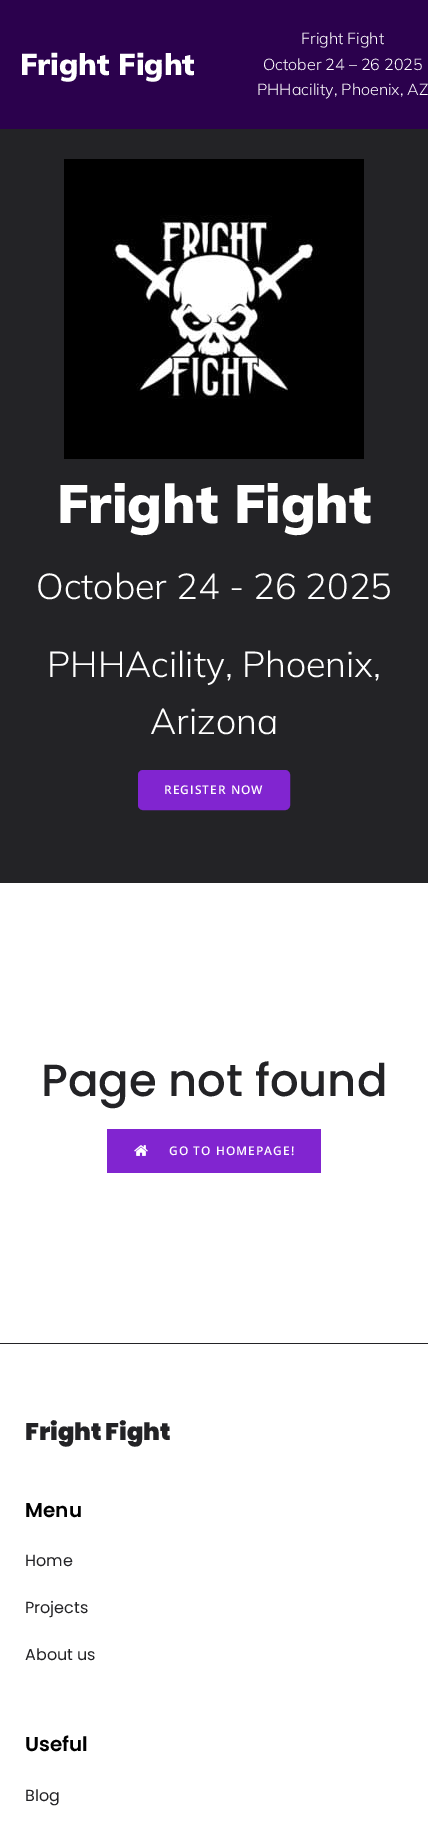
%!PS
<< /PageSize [428 1825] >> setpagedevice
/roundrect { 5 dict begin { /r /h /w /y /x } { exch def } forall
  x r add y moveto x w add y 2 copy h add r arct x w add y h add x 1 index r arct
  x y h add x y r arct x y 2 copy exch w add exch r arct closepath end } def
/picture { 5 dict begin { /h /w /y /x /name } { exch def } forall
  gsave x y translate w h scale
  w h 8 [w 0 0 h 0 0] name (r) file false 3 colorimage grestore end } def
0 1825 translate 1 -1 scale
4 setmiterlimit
1 setgray
0 0 428 1825 rectfill
0.169 0.004 0.302 setrgbcolor
0 0 428 129 rectfill
/Mulish-Black [30 0 0 -30 0 0] selectfont
1 setgray
20 75 moveto (Fright Fight) show
/Mulish-Light [16 0 0 -16 0 0] selectfont
301 44 moveto (Fright Fight) show
263 70 moveto (October 24 – 26 2025) show
257 95 moveto (PHHacility, Phoenix, AZ) show
0.137 0.137 0.149 setrgbcolor
0 129 428 754 rectfill
(img1.rgb) 64 159 300 300 picture
/Mulish-Black [54 0 0 -54 0 0] selectfont
1 setgray
57 523 moveto (Fright Fight) show
/Mulish-Light [36 0 0 -36 0 0] selectfont
36 599 moveto (October 24 - 26 2025) show
47 677 moveto (PHHAcility, Phoenix,) show
150 734 moveto (Arizona) show
0.506 0.145 0.816 setrgbcolor
139 771 150 38 4 roundrect gsave fill grestore
2 setlinewidth
stroke
/OpenSans-SemiBold [12 0 0 -12 0 0] selectfont
1 setgray
164 794 moveto 1 0 (REGISTER NOW) ashow
/Poppins-Medium [45 0 0 -45 0 0] selectfont
0.137 0.137 0.149 setrgbcolor
41 1096 moveto (Page not found) show
0.506 0.145 0.816 setrgbcolor
107 1129 214 44 rectfill
(img2.rgb) 134 1145 14 11 picture
/OpenSans-SemiBold [12 0 0 -12 0 0] selectfont
1 setgray
169 1155 moveto 1 0 (GO TO HOMEPAGE!) ashow
0.137 0.137 0.149 setrgbcolor
0 1343 428 1 rectfill
/Poppins-Black [24 0 0 -24 0 0] selectfont
25 1440 moveto (Fright Fight) show
/Poppins-SemiBold [20 0 0 -20 0 0] selectfont
0 setgray
25 1517 moveto (Menu) show
/Poppins-Regular [16 0 0 -16 0 0] selectfont
0.137 0.137 0.149 setrgbcolor
25 1566 moveto (Home) show
25 1613 moveto (Projects) show
25 1660 moveto (About us) show
/Poppins-SemiBold [20 0 0 -20 0 0] selectfont
0 setgray
25 1751 moveto (Useful) show
/Poppins-Regular [16 0 0 -16 0 0] selectfont
0.137 0.137 0.149 setrgbcolor
25 1801 moveto (Blog) show
showpage
